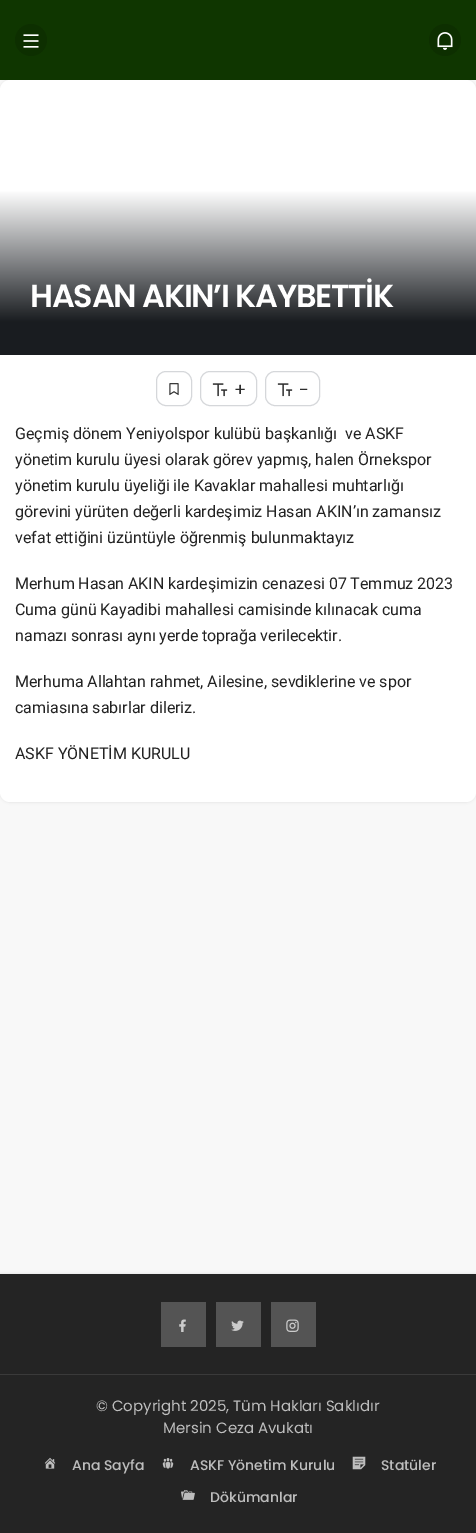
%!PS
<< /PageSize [476 1533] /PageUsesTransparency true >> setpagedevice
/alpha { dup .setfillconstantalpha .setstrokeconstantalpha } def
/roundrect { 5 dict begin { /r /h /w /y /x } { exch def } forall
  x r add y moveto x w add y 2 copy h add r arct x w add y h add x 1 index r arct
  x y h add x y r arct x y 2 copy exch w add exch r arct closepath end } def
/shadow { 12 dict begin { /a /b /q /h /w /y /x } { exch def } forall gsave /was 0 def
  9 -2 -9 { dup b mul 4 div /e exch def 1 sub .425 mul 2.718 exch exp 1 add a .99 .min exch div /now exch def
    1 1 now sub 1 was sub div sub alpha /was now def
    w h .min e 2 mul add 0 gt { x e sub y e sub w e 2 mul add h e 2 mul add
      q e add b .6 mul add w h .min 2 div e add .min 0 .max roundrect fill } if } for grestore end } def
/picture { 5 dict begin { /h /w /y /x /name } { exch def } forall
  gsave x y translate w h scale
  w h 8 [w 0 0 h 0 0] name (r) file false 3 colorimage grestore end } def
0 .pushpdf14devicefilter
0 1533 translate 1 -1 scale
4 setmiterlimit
0.973 setgray
0 0 476 1533 rectfill
0 setgray
0 80 476 722 10 1.5 0.1 shadow
0.059 0.212 0 setrgbcolor
0 0 476 80 rectfill
0.051 0.184 0 setrgbcolor
newpath 31 40 16 0 360 arc closepath fill
(img1.rgb) 23 34 16 14 picture
newpath 445 40 16 0 360 arc closepath fill
(img2.rgb) 437 32 16 18 picture
1 setgray
0 80 476 722 10 roundrect fill
gsave newpath 0 191 moveto 476 191 lineto 476 355 lineto 0 355 lineto closepath clip newpath
<< /ShadingType 2 /ColorSpace /DeviceRGB /Coords [238 355 238 190] /Extend [true true] /Function << /FunctionType 3 /Domain [0 1] /Functions [<< /FunctionType 2 /Domain [0 1] /C0 [0.098 0.11 0.125] /C1 [0.098 0.11 0.125] /N 1 >> << /FunctionType 2 /Domain [0 1] /C0 [0.098 0.11 0.125] /C1 [1 1 1] /N 1 >>] /Bounds [0.2] /Encode [0 1 0 1] >> >> shfill grestore
/Poppins-SemiBold [32 0 0 -32 0 0] selectfont
30 307 moveto -1.25 0 (HASAN AKIN’I KAYBETTİK) ashow
0.835 0.843 0.855 setrgbcolor
156.5 371.5 35 34 9.5 roundrect stroke
(img3.rgb) 169 383 10 13 picture
200.5 371.5 56 34 9.5 roundrect stroke
(img4.rgb) 212 383 16 14 picture
/Poppins-Regular [18 0 0 -18 0 0] selectfont
0.176 setgray
234 396 moveto (+) show
0.835 0.843 0.855 setrgbcolor
265.5 371.5 54 34 9.5 roundrect stroke
(img4.rgb) 277 383 16 14 picture
0.176 setgray
299 396 moveto (-) show
/Roboto-Regular [16 0 0 -16 0 0] selectfont
0.133 setgray
15 439 moveto (Geçmiş dönem Yeniyolspor kulübü başkanlığı  ve ASKF) show
15 465 moveto (yönetim kurulu üyesi olarak görev yapmış, halen Örnekspor) show
15 491 moveto (yönetim kurulu üyeliği ile Kavaklar mahallesi muhtarlığı) show
15 517 moveto (görevini yürüten değerli kardeşimiz Hasan AKIN’ın zamansız) show
15 543 moveto (vefat ettiğini üzüntüyle öğrenmiş bulunmaktayız) show
15 589 moveto -0.25 0 32 (Merhum Hasan AKIN kardeşimizin cenazesi 07 Temmuz 2023) widthshow
15 615 moveto (Cuma günü Kayadibi mahallesi camisinde kılınacak cuma) show
15 641 moveto -0.5 0 32 (namazı sonrası aynı yerde toprağa verilecektir.) widthshow
15 687 moveto (Merhuma Allahtan rahmet, Ailesine, sevdiklerine ve spor) show
15 713 moveto (camiasına sabırlar dileriz.) show
15 759 moveto (ASKF YÖNETİM KURULU) show
0 setgray
0 1274 476 259 0 1.5 0.1 shadow
0.141 setgray
0 1274 476 259 rectfill
0.227 setgray
0 1374 476 1 rectfill
0.329 setgray
161 1302 45 45 rectfill
(img5.rgb) 179 1319 7 13 picture
216 1302 45 45 rectfill
(img6.rgb) 231 1320 13 11 picture
271 1302 45 45 rectfill
(img7.rgb) 286 1319 13 13 picture
/Poppins-Regular [15 0 0 -15 0 0] selectfont
0.741 setgray
96 1411 moveto (© Copyright 2025, Tüm Hakları Saklıdır) show
163 1433 moveto (Mersin Ceza Avukatı) show
(img8.rgb) 44 1457 12 12 picture
/Poppins-Medium [14 0 0 -14 0 0] selectfont
72 1470 moveto (Ana Sayfa) show
(img9.rgb) 162 1458 12 11 picture
190 1470 moveto (ASKF Yönetim Kurulu) show
(img10.rgb) 352 1456 14 14 picture
381 1470 moveto (Statüler) show
(img11.rgb) 181 1490 14 10 picture
210 1502 moveto (Dökümanlar) show
.poppdf14devicefilter showpage
